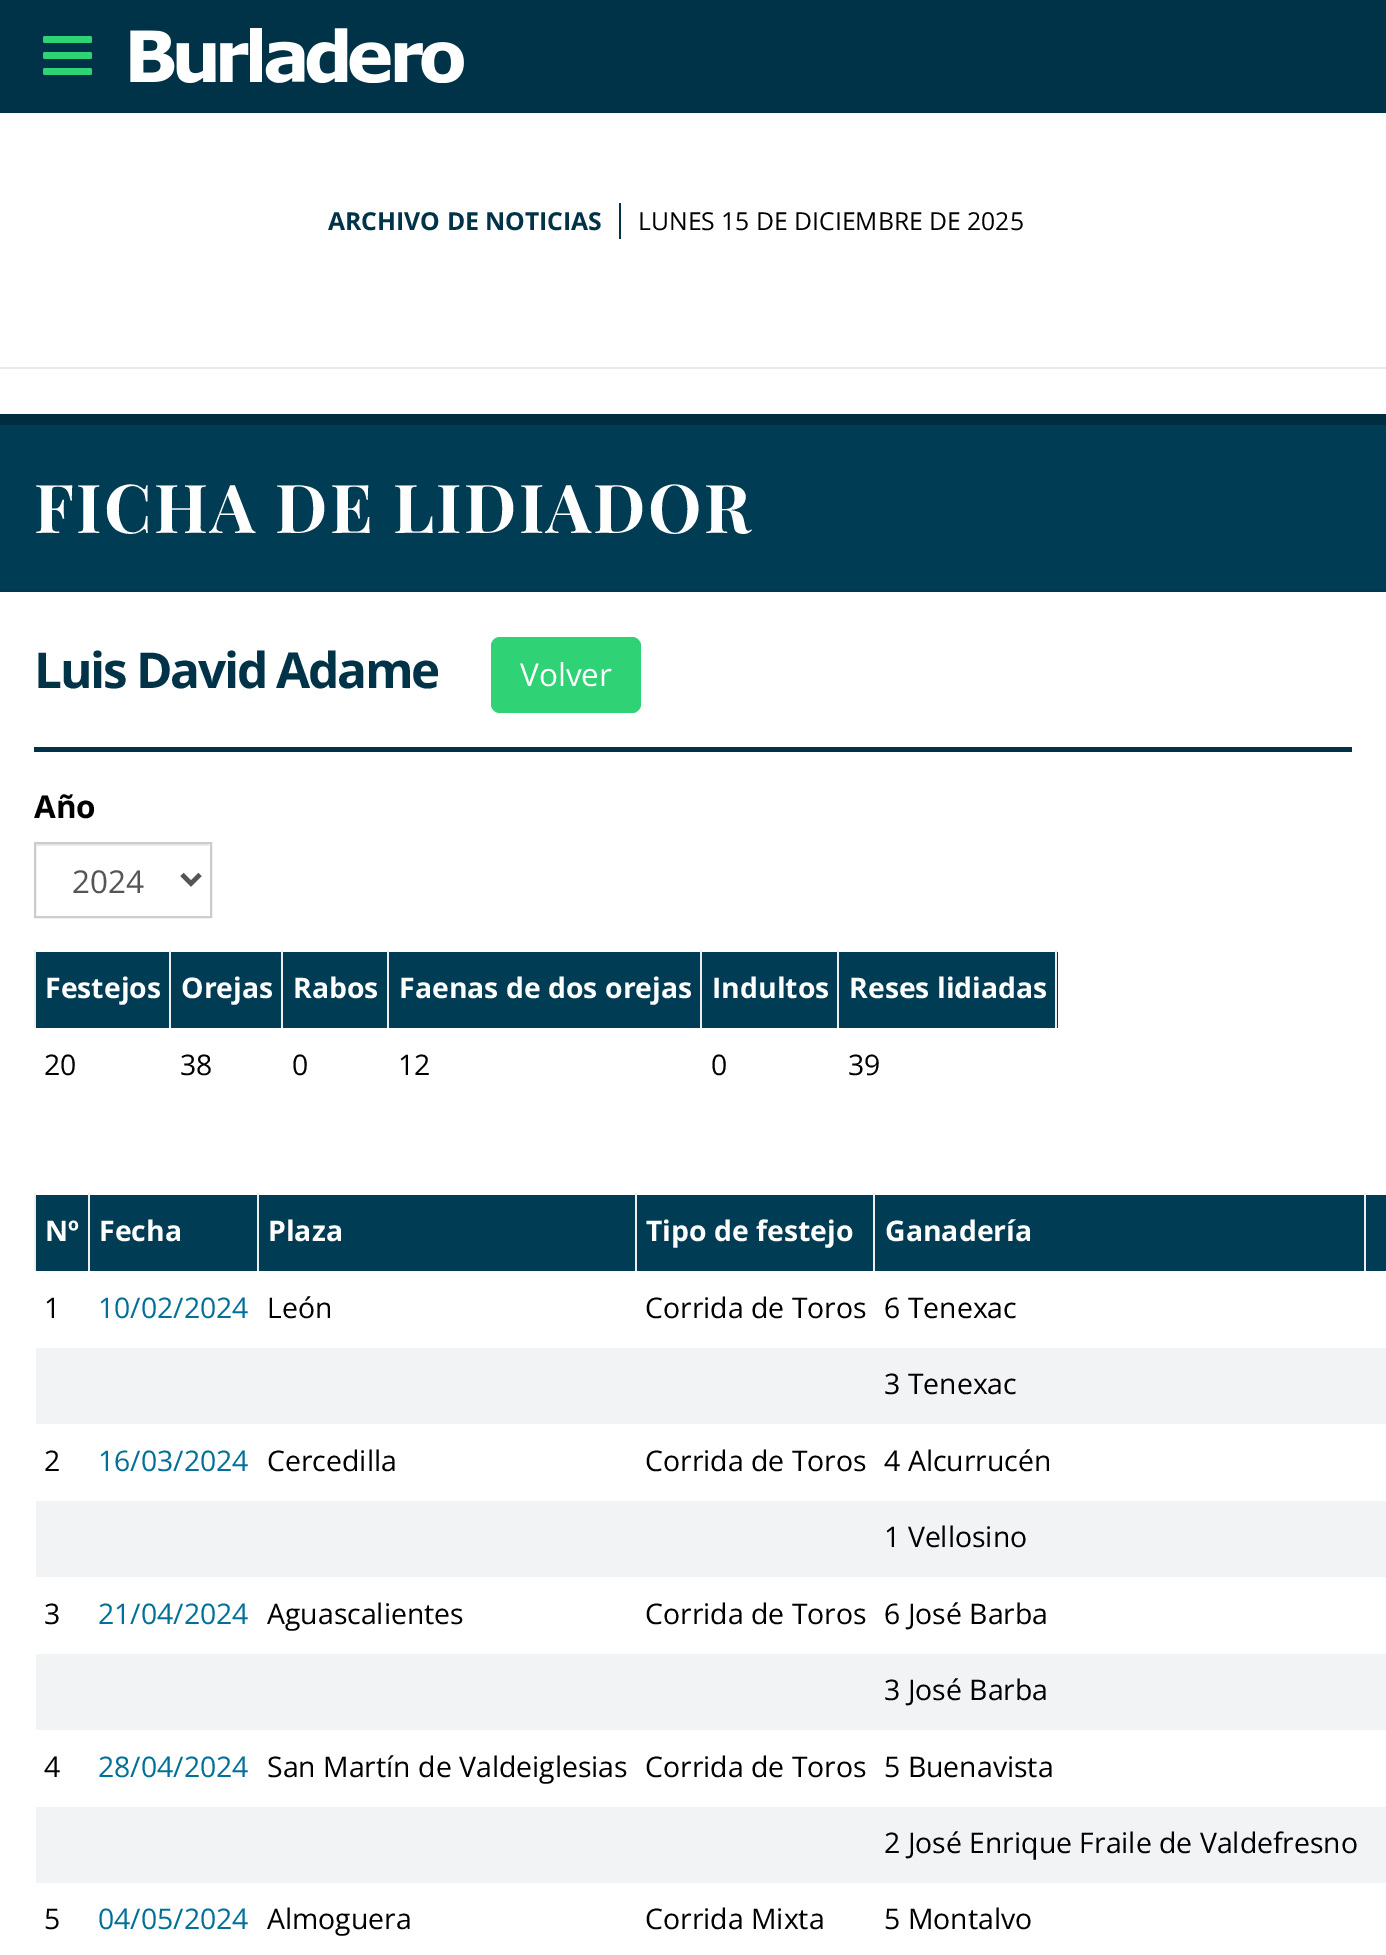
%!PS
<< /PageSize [1386 1955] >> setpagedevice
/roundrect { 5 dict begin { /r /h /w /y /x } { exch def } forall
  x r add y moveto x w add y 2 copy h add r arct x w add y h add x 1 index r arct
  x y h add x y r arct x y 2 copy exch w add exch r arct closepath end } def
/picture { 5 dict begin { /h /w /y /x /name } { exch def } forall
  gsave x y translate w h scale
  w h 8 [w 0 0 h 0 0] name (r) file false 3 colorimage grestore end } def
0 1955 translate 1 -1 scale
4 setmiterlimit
1 setgray
0 0 1386 1955 rectfill
0 0.2 0.282 setrgbcolor
0 0 1386 113 rectfill
0.184 0.827 0.463 setrgbcolor
43 36 49 7 2 roundrect fill
43 52 49 7 2 roundrect fill
43 68 49 7 2 roundrect fill
(img1.rgb) 130 28 334 55 picture
0.914 setgray
0 367 1386 2 rectfill
0 0.2 0.282 setrgbcolor
619 203 2 36 rectfill
/OpenSans-Bold [24.75 0 0 -24.75 0 0] selectfont
328 230 moveto (ARCHIVO DE NOTICIAS) show
/OpenSans-Regular [24.75 0 0 -24.75 0 0] selectfont
0 setgray
638 230 moveto (LUNES 15 DE DICIEMBRE DE 2025) show
0.004 0.235 0.333 setrgbcolor
0 425 1386 165 rectfill
0.004 0.176 0.251 setrgbcolor
0 414 1386 11 rectfill
0.004 0.212 0.302 setrgbcolor
0 590 1386 2 rectfill
/PlayfairDisplaySC-Bold [67.5 0 0 -67.5 0 0] selectfont
1 setgray
34 533 moveto 2.25 0 (FICHA DE LIDIADOR) ashow
0 0.2 0.282 setrgbcolor
34 747 1318 5 rectfill
/OpenSans-Bold [49.5 0 0 -49.5 0 0] selectfont
34 688 moveto -2.25 0 (Luis David Adame) ashow
0.184 0.827 0.463 setrgbcolor
491 637 150 76 9 roundrect fill
/OpenSans-Regular [31.5 0 0 -31.5 0 0] selectfont
1 setgray
520 686 moveto (Volver) show
/OpenSans-Bold [31.5 0 0 -31.5 0 0] selectfont
0 setgray
34 818 moveto (Año) show
0.925 setgray
36 844 173 2 rectfill
0.8 setgray
2 setlinewidth
35 843 176 74 rectstroke
0.333 setgray
4.5 setlinewidth
newpath 182 874.5 moveto 191 883.5 lineto 200 874.5 lineto stroke
/OpenSans-Regular [31.5 0 0 -31.5 0 0] selectfont
72 893 moveto (2024) show
0.004 0.235 0.333 setrgbcolor
36 952 133 76 rectfill
0.933 setgray
34 950 2 78 rectfill
/OpenSans-Bold [28.4 0 0 -28.4 0 0] selectfont
1 setgray
45 998 moveto (Festejos) show
0.004 0.235 0.333 setrgbcolor
171 952 216 76 rectfill
0.933 setgray
169 950 2 78 rectfill
1 setgray
181 998 moveto (Orejas) show
0.933 setgray
281 950 2 78 rectfill
1 setgray
293 998 moveto (Rabos) show
0.004 0.235 0.333 setrgbcolor
389 952 311 76 rectfill
0.933 setgray
387 950 2 78 rectfill
1 setgray
399 998 moveto (Faenas de dos orejas) show
0.004 0.235 0.333 setrgbcolor
702 952 135 76 rectfill
0.933 setgray
700 950 2 78 rectfill
1 setgray
712 998 moveto (Indultos) show
0.004 0.235 0.333 setrgbcolor
839 952 219 76 rectfill
0.933 setgray
1055 950 2 78 rectfill
837 950 2 78 rectfill
1 setgray
849 998 moveto (Reses lidiadas) show
/OpenSans-Regular [28.4 0 0 -28.4 0 0] selectfont
0 setgray
44 1075 moveto (20) show
180 1075 moveto (38) show
292 1075 moveto (0) show
398 1075 moveto (12) show
711 1075 moveto (0) show
848 1075 moveto (39) show
0.004 0.235 0.333 setrgbcolor
36 1195 52 76 rectfill
0.933 setgray
34 1193 2 78 rectfill
/OpenSans-Bold [28.4 0 0 -28.4 0 0] selectfont
1 setgray
45 1241 moveto (Nº) show
0.004 0.235 0.333 setrgbcolor
90 1195 167 76 rectfill
0.933 setgray
88 1193 2 78 rectfill
1 setgray
99 1241 moveto (Fecha) show
0.004 0.235 0.333 setrgbcolor
259 1195 376 76 rectfill
0.933 setgray
257 1193 2 78 rectfill
1 setgray
268 1241 moveto (Plaza) show
0.004 0.235 0.333 setrgbcolor
637 1195 236 76 rectfill
0.933 setgray
635 1193 2 78 rectfill
1 setgray
646 1241 moveto (Tipo de festejo) show
0.004 0.235 0.333 setrgbcolor
875 1195 489 76 rectfill
0.933 setgray
873 1193 2 78 rectfill
1 setgray
885 1241 moveto (Ganadería) show
0.004 0.235 0.333 setrgbcolor
1366 1195 20 76 rectfill
0.933 setgray
1364 1193 2 78 rectfill
/OpenSans-Regular [28.4 0 0 -28.4 0 0] selectfont
0 setgray
44 1318 moveto (1) show
0 0.439 0.596 setrgbcolor
98 1318 moveto (10/02/2024) show
0 setgray
267 1318 moveto (León) show
645 1318 moveto (Corrida de Toros) show
884 1318 moveto (6 Tenexac) show
0.949 0.953 0.957 setrgbcolor
36 1348 1350 76 rectfill
0 setgray
884 1394 moveto (3 Tenexac) show
44 1471 moveto (2) show
0 0.439 0.596 setrgbcolor
98 1471 moveto (16/03/2024) show
0 setgray
267 1471 moveto (Cercedilla) show
645 1471 moveto (Corrida de Toros) show
884 1471 moveto (4 Alcurrucén) show
0.949 0.953 0.957 setrgbcolor
36 1501 1350 76 rectfill
0 setgray
884 1547 moveto (1 Vellosino) show
44 1624 moveto (3) show
0 0.439 0.596 setrgbcolor
98 1624 moveto (21/04/2024) show
0 setgray
267 1624 moveto (Aguascalientes) show
645 1624 moveto (Corrida de Toros) show
884 1624 moveto (6 José Barba) show
0.949 0.953 0.957 setrgbcolor
36 1654 1350 76 rectfill
0 setgray
884 1700 moveto (3 José Barba) show
44 1777 moveto (4) show
0 0.439 0.596 setrgbcolor
98 1777 moveto (28/04/2024) show
0 setgray
267 1777 moveto (San Martín de Valdeiglesias) show
645 1777 moveto (Corrida de Toros) show
884 1777 moveto (5 Buenavista) show
0.949 0.953 0.957 setrgbcolor
36 1807 1350 76 rectfill
0 setgray
884 1853 moveto (2 José Enrique Fraile de Valdefresno) show
44 1929 moveto (5) show
0 0.439 0.596 setrgbcolor
98 1929 moveto (04/05/2024) show
0 setgray
267 1929 moveto (Almoguera) show
645 1929 moveto (Corrida Mixta) show
884 1929 moveto (5 Montalvo) show
showpage
